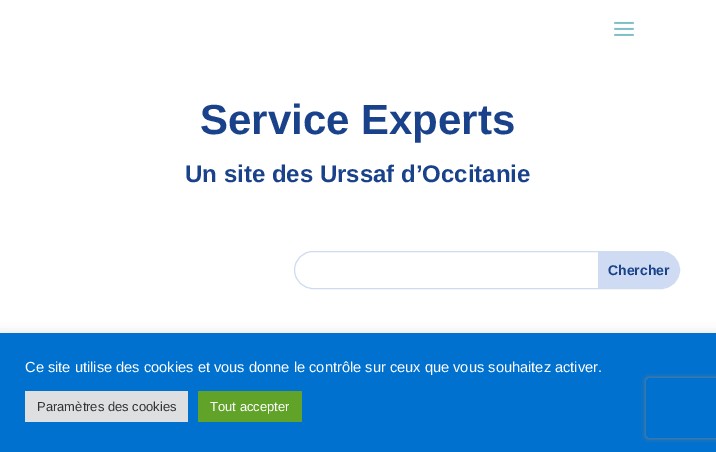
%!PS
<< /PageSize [716 452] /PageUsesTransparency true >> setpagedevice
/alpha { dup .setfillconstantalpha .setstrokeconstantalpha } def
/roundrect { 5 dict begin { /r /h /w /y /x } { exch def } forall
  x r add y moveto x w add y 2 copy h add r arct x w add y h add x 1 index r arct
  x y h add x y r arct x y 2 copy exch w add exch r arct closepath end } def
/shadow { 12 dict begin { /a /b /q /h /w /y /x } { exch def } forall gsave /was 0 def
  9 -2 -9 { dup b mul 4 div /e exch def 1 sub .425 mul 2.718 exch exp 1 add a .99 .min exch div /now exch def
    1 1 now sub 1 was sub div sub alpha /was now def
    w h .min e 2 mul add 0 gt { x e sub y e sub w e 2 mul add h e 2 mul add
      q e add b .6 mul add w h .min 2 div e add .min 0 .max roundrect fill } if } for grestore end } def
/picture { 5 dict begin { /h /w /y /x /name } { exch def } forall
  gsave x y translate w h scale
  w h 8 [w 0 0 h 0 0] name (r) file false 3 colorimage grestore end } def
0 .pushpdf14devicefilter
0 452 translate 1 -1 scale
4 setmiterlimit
1 setgray
0 0 716 452 rectfill
(img1.rgb) 614 21 20 15 picture
/LiberationSans-Bold [42 0 0 -42 0 0] selectfont
0.102 0.259 0.541 setrgbcolor
200 134 moveto (Service Experts) show
/LiberationSans-Bold [24 0 0 -24 0 0] selectfont
185 182 moveto (Un site des Urssaf d’Occitanie) show
0.808 0.859 0.949 setrgbcolor
294.5 251.5 385 37 18.5 roundrect stroke
newpath 598 252 moveto 661 252 lineto 671 252 679 260 679 270 curveto 679 280 671 288 661 288 curveto 598 288 lineto closepath fill
/LiberationSans-Bold [14 0 0 -14 0 0] selectfont
0.102 0.259 0.541 setrgbcolor
608 275 moveto (Chercher) show
0.675 0.671 0.671 setrgbcolor
0 332 716 119 0 5 0.3 shadow
0 0.443 0.808 setrgbcolor
0 333 716 119 rectfill
/LiberationSans-Regular [14.65 0 0 -14.65 0 0] selectfont
1 setgray
25 372 moveto (Ce site utilise des cookies et vous donne le contrôle sur ceux que vous souhaitez activer.) show
0.871 0.875 0.878 setrgbcolor
25 391 163 31 rectfill
/LiberationSans-Regular [13 0 0 -13 0 0] selectfont
0.2 setgray
37 411 moveto (Paramètres des cookies) show
0.38 0.635 0.161 setrgbcolor
198 391 104 31 rectfill
1 setgray
210 411 moveto (Tout accepter) show
gsave
newpath 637 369 moveto 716 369 lineto 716 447 lineto 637 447 lineto closepath 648 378 moveto 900 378 lineto 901 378 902 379 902 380 curveto 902 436 lineto 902 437 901 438 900 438 curveto 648 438 lineto 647 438 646 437 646 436 curveto 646 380 lineto 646 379 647 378 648 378 curveto closepath eoclip newpath
0.502 setgray
646 378 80 60 2 2.5 1 shadow
grestore
.poppdf14devicefilter showpage
